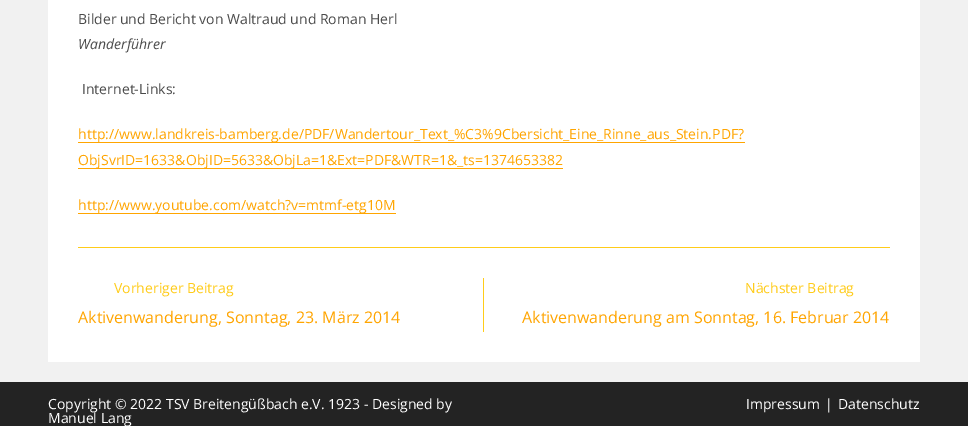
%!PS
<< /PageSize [968 426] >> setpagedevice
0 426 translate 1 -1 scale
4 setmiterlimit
0.945 setgray
0 0 968 426 rectfill
1 setgray
48 0 872 362 rectfill
/OpenSans-Regular [14 0 0 -14 0 0] selectfont
0.29 setgray
78 24 moveto (Bilder und Bericht von Waltraud und Roman Herl) show
/OpenSans-Italic [14 0 0 -14 0 0] selectfont
78 49 moveto (Wanderführer) show
/OpenSans-Regular [14 0 0 -14 0 0] selectfont
82 94 moveto (Internet-Links:) show
1 0.647 0 setrgbcolor
78 142 667 1 rectfill
78 139 moveto (http://www.landkreis-bamberg.de/PDF/Wandertour_Text_%C3%9Cbersicht_Eine_Rinne_aus_Stein.PDF?) show
78 168 485 1 rectfill
78 165 moveto (ObjSvrID=1633&ObjID=5633&ObjLa=1&Ext=PDF&WTR=1&_ts=1374653382) show
78 213 318 1 rectfill
78 210 moveto (http://www.youtube.com/watch?v=mtmf-etg10M) show
1 0.8 0.098 setrgbcolor
78 247 812 1 rectfill
483 278 1 54 rectfill
114 293 moveto (Vorheriger Beitrag) show
/OpenSans-Regular [16 0 0 -16 0 0] selectfont
1 0.647 0 setrgbcolor
78 323 moveto (Aktivenwanderung, Sonntag, 23. März 2014) show
/OpenSans-Regular [14 0 0 -14 0 0] selectfont
1 0.8 0.098 setrgbcolor
745 293 moveto (Nächster Beitrag) show
/OpenSans-Regular [16 0 0 -16 0 0] selectfont
1 0.647 0 setrgbcolor
522 323 moveto (Aktivenwanderung am Sonntag, 16. Februar 2014) show
0.137 setgray
0 382 968 44 rectfill
/OpenSans-Regular [14 0 0 -14 0 0] selectfont
1 setgray
48 409 moveto (Copyright © 2022 TSV Breitengüßbach e.V. 1923 - Designed by) show
48 423 moveto (Manuel Lang) show
746 409 moveto (Impressum) show
825 409 moveto (|) show
838 409 moveto (Datenschutz) show
showpage
